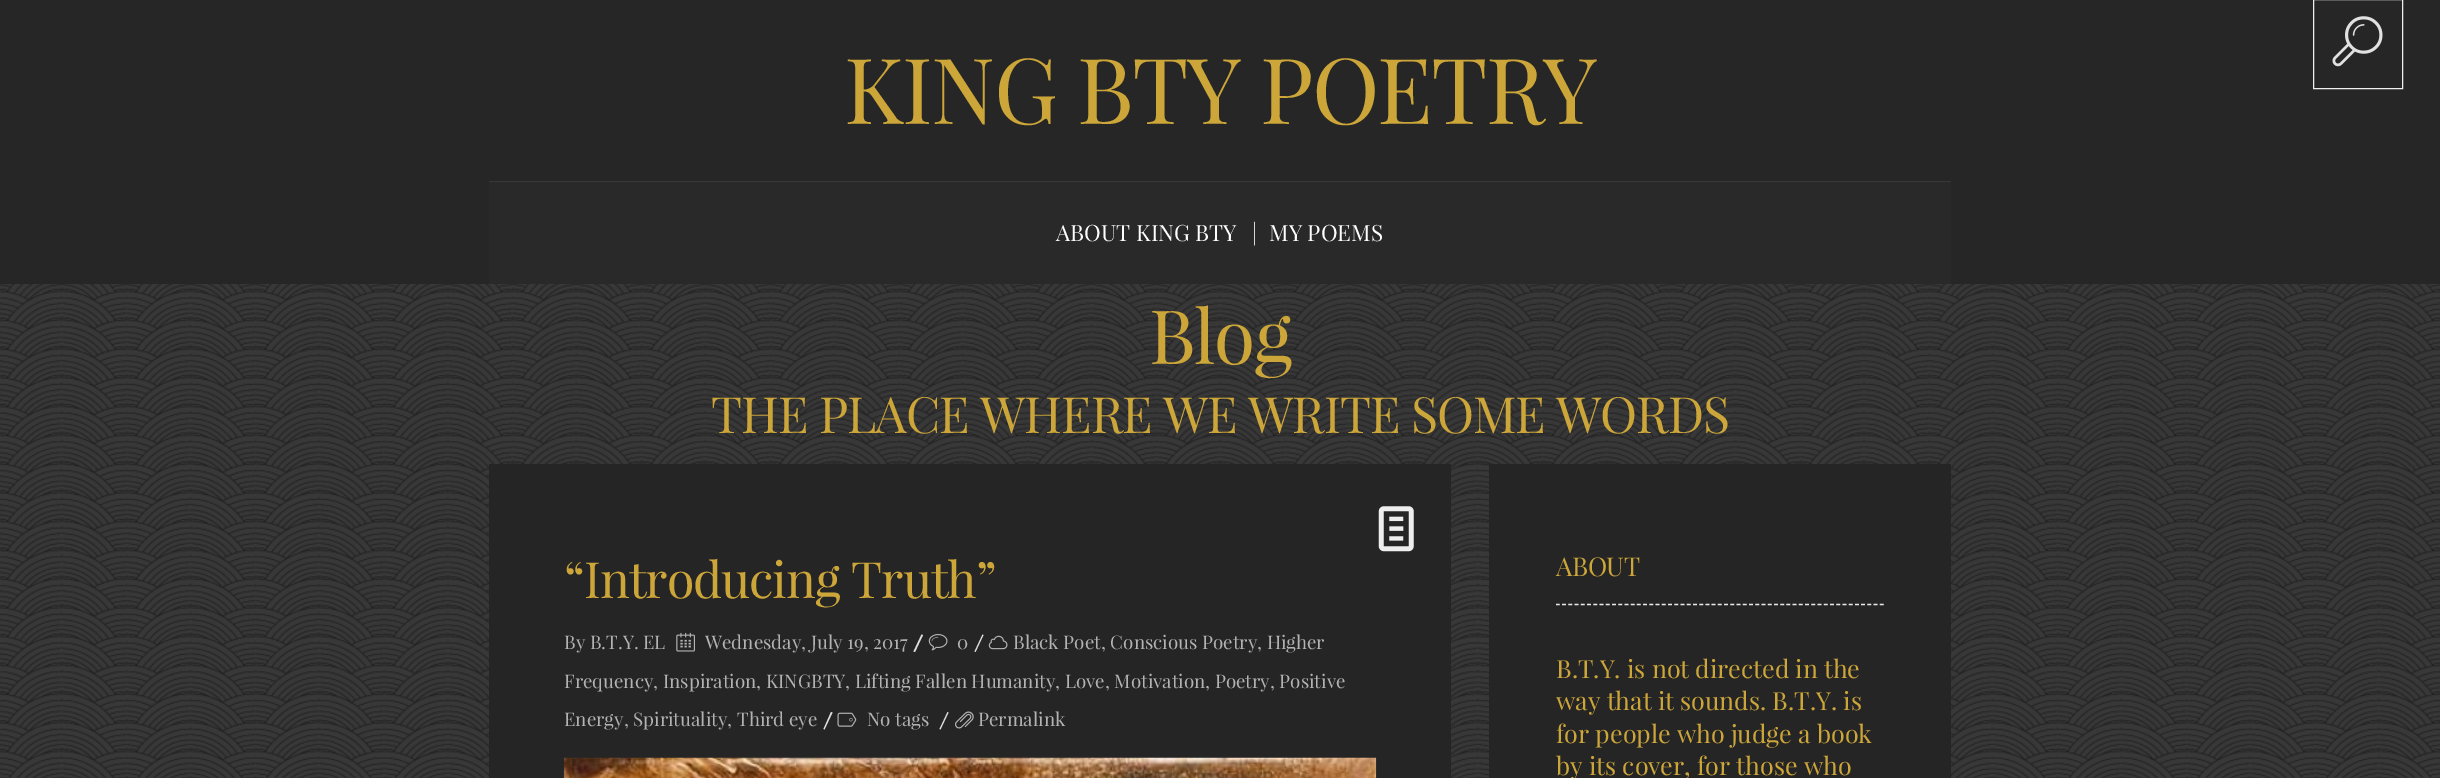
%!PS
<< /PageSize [2440 778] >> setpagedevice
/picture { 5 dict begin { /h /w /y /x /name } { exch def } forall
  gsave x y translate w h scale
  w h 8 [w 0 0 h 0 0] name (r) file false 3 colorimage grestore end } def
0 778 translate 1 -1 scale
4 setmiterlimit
0 setgray
0 0 2440 778 rectfill
(img1.rgb) 0 284 2440 494 picture
0.149 setgray
0 0 2440 284 rectfill
0.933 setgray
2313.5 -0.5 89 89 rectstroke
(img2.rgb) 2332 16 51 51 picture
/PlayfairDisplay-Regular [91.25 0 0 -91.25 0 0] selectfont
0.804 0.651 0.227 setrgbcolor
844 124 moveto -1.8 0 (KING BTY POETRY) ashow
0.161 setgray
489 182 1462 102 rectfill
0.22 setgray
489 181 1462 1 rectfill
/PlayfairDisplay-Regular [22.5 0 0 -22.5 0 0] selectfont
1 setgray
1056 241 moveto (ABOUT KING BTY) show
0.839 setgray
1252 241 moveto (|) show
1 setgray
1269 241 moveto (MY POEMS) show
/PlayfairDisplay-Regular [75 0 0 -75 0 0] selectfont
0.804 0.651 0.227 setrgbcolor
1149 364 moveto -1.5 0 (Blog) ashow
/PlayfairDisplay-Regular [50 0 0 -50 0 0] selectfont
711 433 moveto -1 0 (THE PLACE WHERE WE WRITE SOME WORDS) ashow
0.145 setgray
489 464 962 314 rectfill
(img3.rgb) 1378 506 36 46 picture
0.804 0.651 0.227 setrgbcolor
564 598 moveto -1 0 (“Introducing Truth”) ashow
(img4.rgb) 988 635 20 15 picture
/PlayfairDisplay-Regular [18.75 0 0 -18.75 0 0] selectfont
0.702 setgray
1013 649 moveto (Black Poet, Conscious Poetry, Higher) show
564 688 moveto (Frequency, Inspiration, KINGBTY, Lifting Fallen Humanity, Love, Motivation, Poetry, Positive) show
564 726 moveto (Energy, Spirituality, Third eye) show
0.867 setgray
newpath 831 712 moveto 832.5 712.5 lineto 824.5 729.5 lineto 823.5 729 lineto closepath fill
0.702 setgray
564 649 moveto (By B.T.Y. EL) show
(img5.rgb) 676 632 19 20 picture
705 649 moveto (Wednesday, July 19, 2017) show
0.867 setgray
newpath 921.5 634.5 moveto 923 635 lineto 915 652 lineto 913.5 651.5 lineto closepath fill
(img6.rgb) 928 634 20 17 picture
0.702 setgray
957 649 moveto (0) show
0.867 setgray
newpath 982.5 634.5 moveto 983.5 635 lineto 975.5 652 lineto 974.5 651.5 lineto closepath fill
(img7.rgb) 837 712 20 15 picture
0.702 setgray
867 726 moveto (No tags) show
0.867 setgray
newpath 947.5 712 moveto 948.5 712.5 lineto 940.5 729.5 lineto 939.5 729 lineto closepath fill
(img8.rgb) 955 711 19 18 picture
0.702 setgray
978 726 moveto (Permalink) show
(img9.rgb) 563 757 814 21 picture
0.145 setgray
1489 464 462 314 rectfill
0.914 setgray
1.2 setlinewidth
[3.75 2.48] 0 setdash
newpath 1556 604.5 moveto 1884 604.5 lineto stroke
/PlayfairDisplay-Regular [26 0 0 -26 0 0] selectfont
0.804 0.651 0.227 setrgbcolor
1556 576 moveto -0.5 0 (ABOUT) ashow
/PlayfairDisplay-Regular [25 0 0 -25 0 0] selectfont
1556 678 moveto (B.T.Y. is not directed in the) show
1556 710 moveto (way that it sounds. B.T.Y. is) show
1556 743 moveto (for people who judge a book) show
1556 775 moveto (by its cover, for those who) show
showpage
